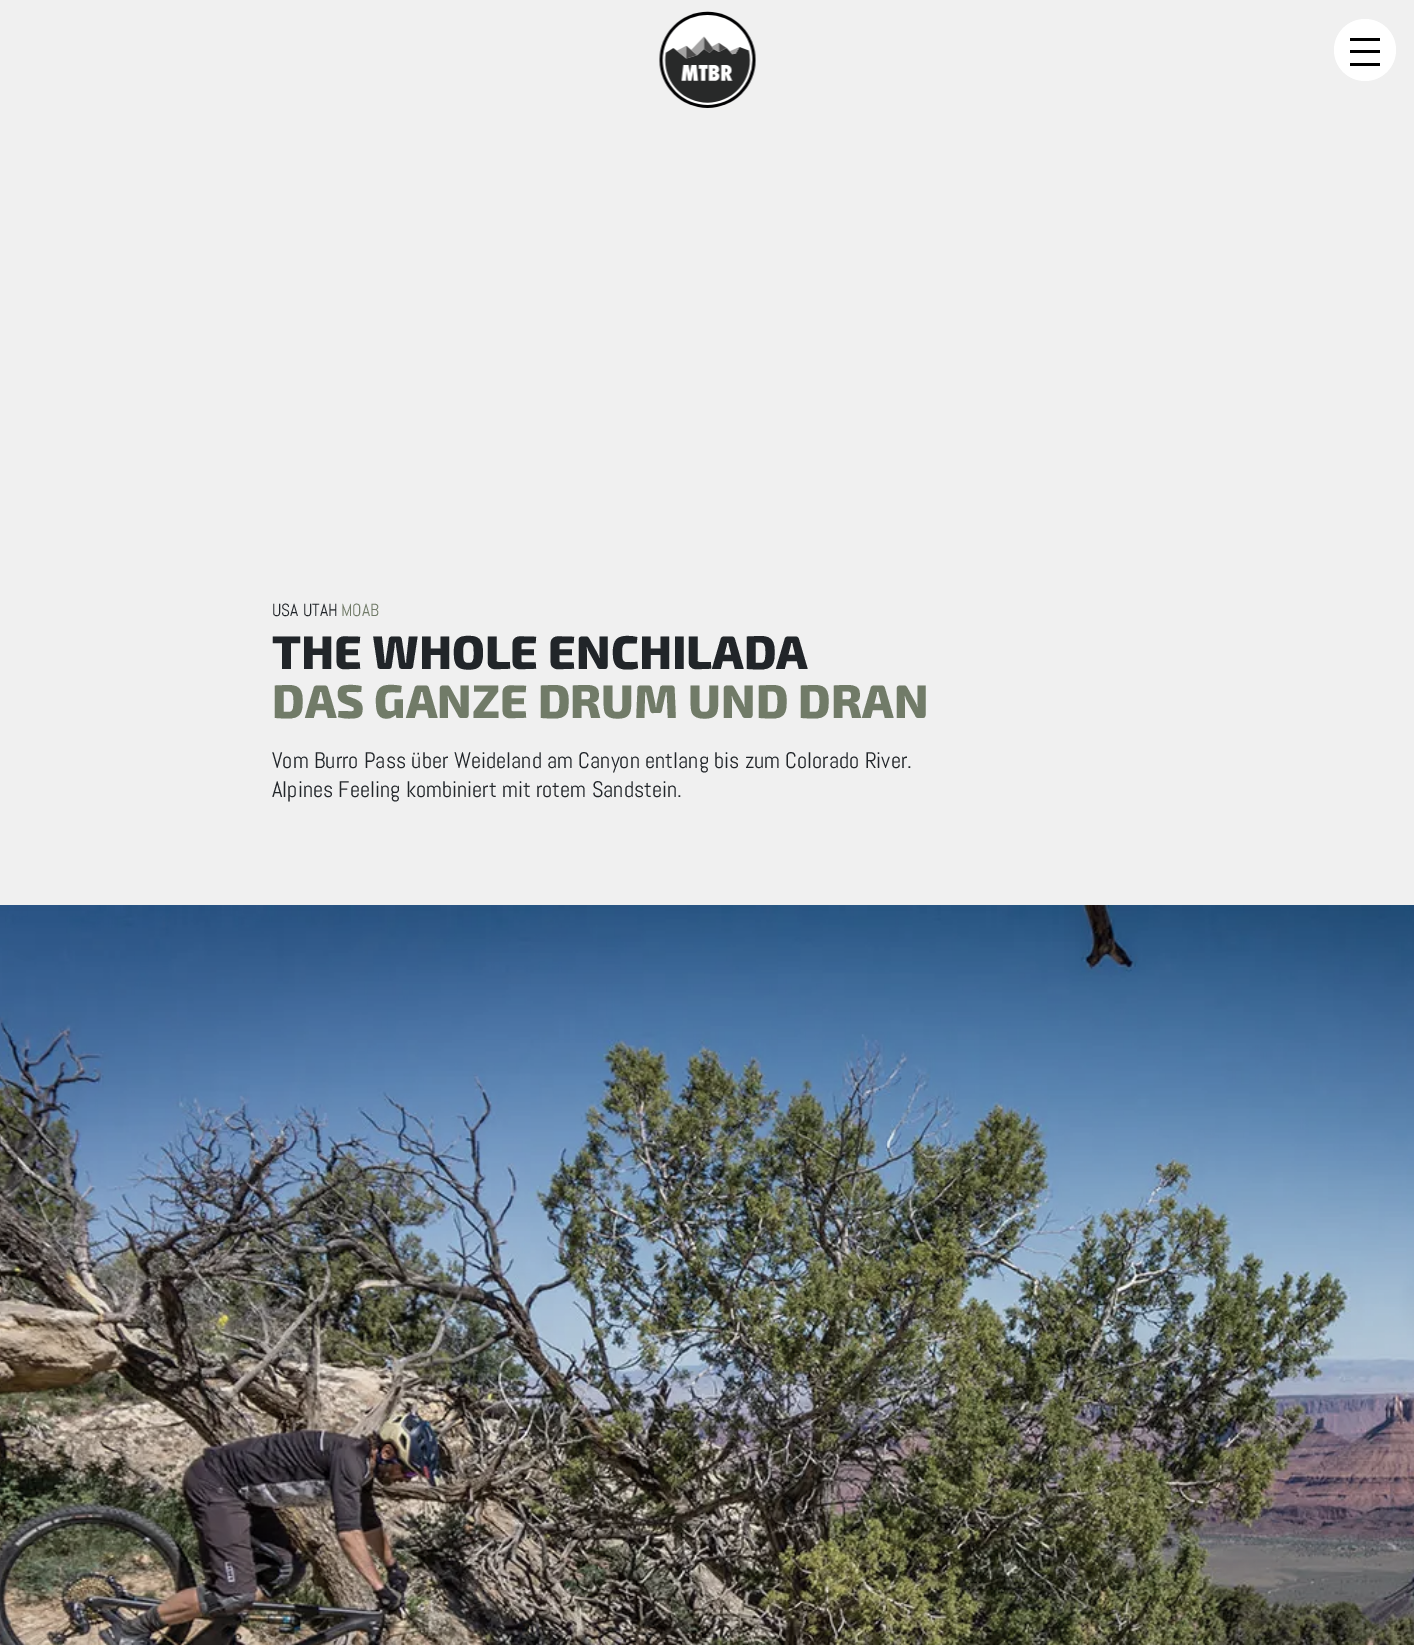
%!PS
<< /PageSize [1414 1645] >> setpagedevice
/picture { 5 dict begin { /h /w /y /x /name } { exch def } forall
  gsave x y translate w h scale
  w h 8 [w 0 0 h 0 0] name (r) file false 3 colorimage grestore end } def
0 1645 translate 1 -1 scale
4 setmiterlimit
0.941 setgray
0 0 1414 1645 rectfill
1 setgray
newpath 1365 50 31 0 360 arc closepath fill
0 setgray
1350 50 30 3 rectfill
1350 38 30 3 rectfill
1350 63 30 3 rectfill
(img1.rgb) 659 11 97 97 picture
/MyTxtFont-Regular [17.5 0 0 -17.5 0 0] selectfont
0.129 0.145 0.161 setrgbcolor
272 616 moveto (USA UTAH) show
0.443 0.482 0.408 setrgbcolor
341 616 moveto (MOAB) show
/Exo2-ExtraBold [47.25 0 0 -47.25 0 0] selectfont
0.129 0.145 0.161 setrgbcolor
272 669 moveto (THE WHOLE ENCHILADA) show
0.443 0.482 0.408 setrgbcolor
272 718 moveto (DAS GANZE DRUM UND DRAN) show
/MyTxtFont-Regular [22.5 0 0 -22.5 0 0] selectfont
0.129 0.145 0.161 setrgbcolor
272 768 moveto (Vom Burro Pass über Weideland am Canyon entlang bis zum Colorado River.) show
272 797 moveto (Alpines Feeling kombiniert mit rotem Sandstein.) show
(img2.rgb) 0 905 1414 740 picture
showpage
